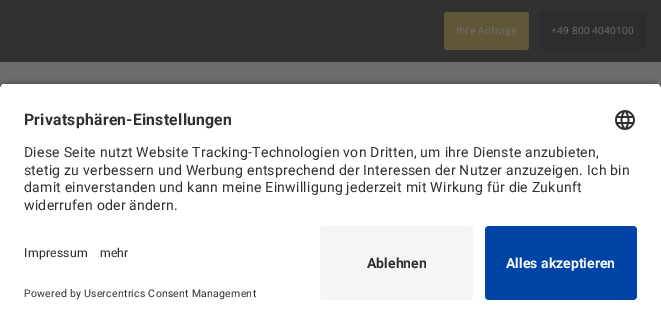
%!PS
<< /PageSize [661 324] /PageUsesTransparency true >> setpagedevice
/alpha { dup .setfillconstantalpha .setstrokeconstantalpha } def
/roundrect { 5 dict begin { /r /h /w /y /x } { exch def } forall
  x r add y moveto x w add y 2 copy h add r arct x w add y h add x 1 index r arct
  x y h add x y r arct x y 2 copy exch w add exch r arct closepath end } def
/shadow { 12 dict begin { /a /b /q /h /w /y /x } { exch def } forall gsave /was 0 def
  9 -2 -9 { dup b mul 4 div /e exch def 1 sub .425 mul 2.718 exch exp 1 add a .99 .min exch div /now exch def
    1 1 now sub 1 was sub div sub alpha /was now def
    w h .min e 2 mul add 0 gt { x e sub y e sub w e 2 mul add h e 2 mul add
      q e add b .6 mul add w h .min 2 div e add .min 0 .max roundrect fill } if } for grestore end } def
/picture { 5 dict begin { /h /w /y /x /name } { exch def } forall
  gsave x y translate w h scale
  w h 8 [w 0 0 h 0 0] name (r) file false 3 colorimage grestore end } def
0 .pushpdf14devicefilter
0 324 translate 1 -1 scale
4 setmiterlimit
0.424 setgray
0 0 661 324 rectfill
0.192 0.192 0.196 setrgbcolor
0 0 661 62 rectfill
0.376 0.341 0.224 setrgbcolor
444 12 85 38 3 roundrect fill
/OpenSans-Regular [10 0 0 -10 0 0] selectfont
0.439 setgray
456 34 moveto 0.25 0 (Ihre Anfrage) ashow
0.176 setgray
539 12 107 38 3 roundrect fill
0.439 setgray
551 34 moveto 0.25 0 (+49 800 4040100) ashow
0 setgray
0 86 661 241 8 3.5 0.8 shadow
gsave
newpath 8 83 moveto 653 83 lineto 657.5 83 661 86.5 661 91 curveto 661 218 lineto 0 218 lineto 0 91 lineto 0 86.5 3.5 83 8 83 curveto closepath clip newpath
1 setgray
0 84 661 134 rectfill
grestore
/Roboto-Bold [15.75 0 0 -15.75 0 0] selectfont
0.188 setgray
24 125 moveto 0.25 0 (Privatsphären-Einstellungen) ashow
(img1.rgb) 615 110 20 20 picture
/Roboto-Regular [14 0 0 -14 0 0] selectfont
24 157 moveto 0.25 0 (Diese Seite nutzt Website Tracking-Technologien von Dritten, um ihre Dienste anzubieten,) ashow
24 175 moveto 0.25 0 (stetig zu verbessern und Werbung entsprechend der Interessen der Nutzer anzuzeigen. Ich bin) ashow
24 192 moveto 0.25 0 (damit einverstanden und kann meine Einwilligung jederzeit mit Wirkung für die Zukunft) ashow
24 210 moveto 0.25 0 (widerrufen oder ändern.) ashow
1 setgray
0 218 661 106 rectfill
/Roboto-Regular [12.25 0 0 -12.25 0 0] selectfont
0.188 setgray
24 257 moveto 0.25 0 (Impressum) ashow
100 257 moveto (mehr) show
/Roboto-Regular [10.5 0 0 -10.5 0 0] selectfont
24 297 moveto 0.25 0 (Powered by Usercentrics Consent Management) ashow
0.961 setgray
320 226 153 74 4 roundrect fill
/Roboto-Bold [14 0 0 -14 0 0] selectfont
0.188 setgray
367 268 moveto (Ablehnen) show
0 0.271 0.647 setrgbcolor
485 226 152 74 4 roundrect fill
0.98 setgray
506 268 moveto (Alles akzeptieren) show
.poppdf14devicefilter showpage
